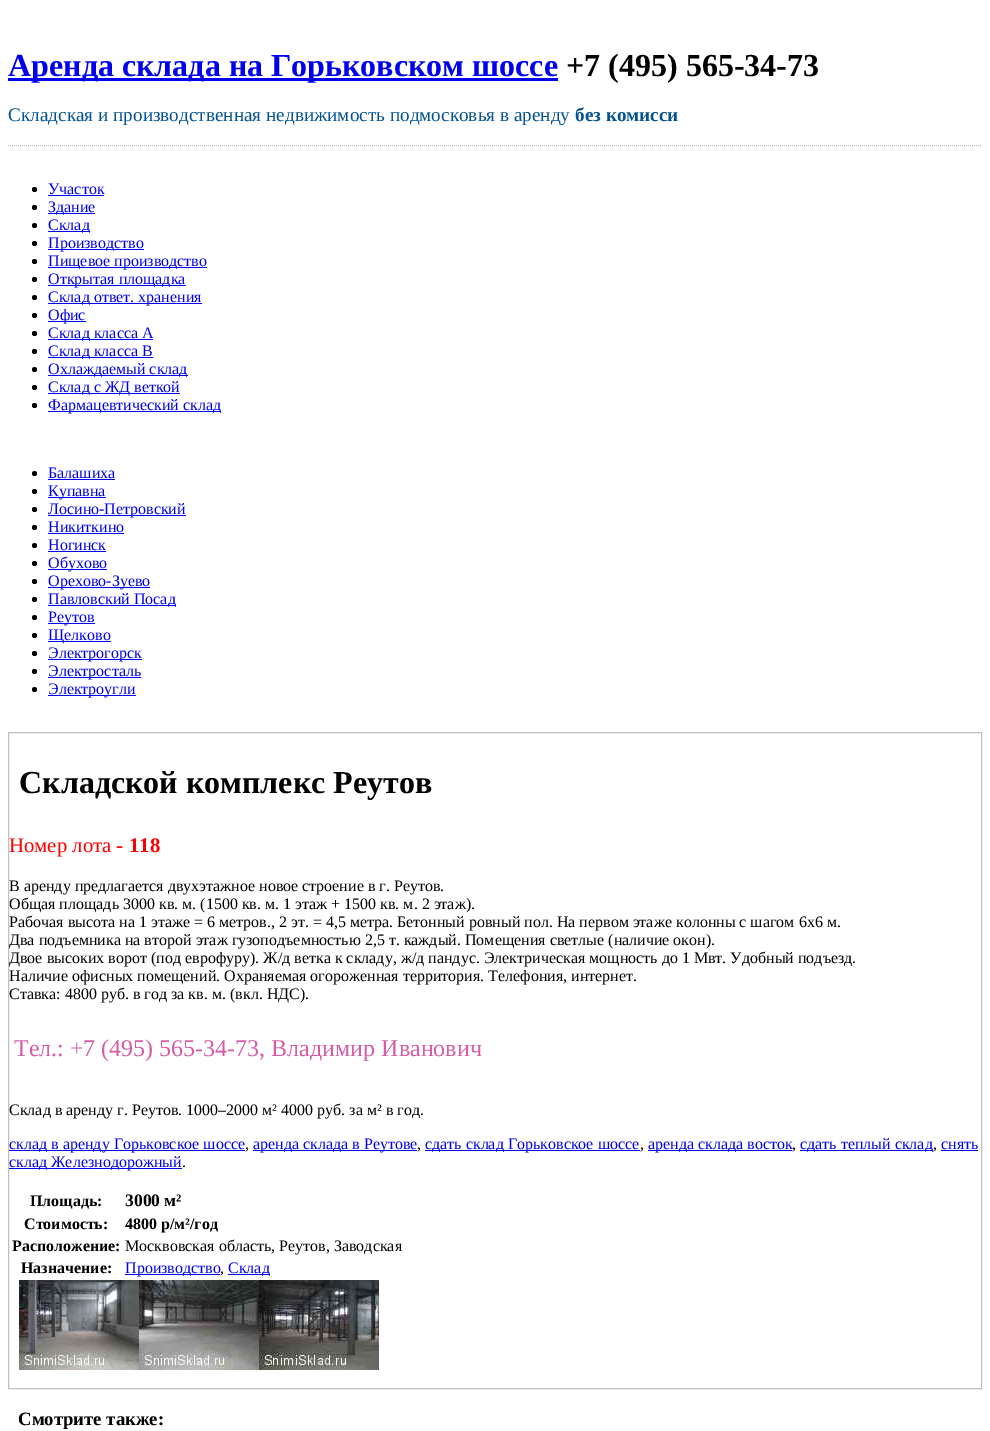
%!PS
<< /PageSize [990 1431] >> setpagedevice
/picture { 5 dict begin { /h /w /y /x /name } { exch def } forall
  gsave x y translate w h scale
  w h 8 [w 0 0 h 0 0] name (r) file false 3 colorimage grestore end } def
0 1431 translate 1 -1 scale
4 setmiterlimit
1 setgray
0 0 990 1431 rectfill
0 0 0.933 setrgbcolor
8 78 550 3 rectfill
/LiberationSerif-Bold [32 0 0 -32 0 0] selectfont
8 76 moveto (Аренда склада на Горьковском шоссе) show
0 setgray
566 76 moveto (+7 \(495\) 565-34-73) show
/LiberationSerif-Regular [19.2 0 0 -19.2 0 0] selectfont
0.012 0.322 0.573 setrgbcolor
8 121 moveto (Складская и производственная недвижимость подмосковья в аренду) show
/LiberationSerif-Bold [19.2 0 0 -19.2 0 0] selectfont
575 121 moveto (без комисси) show
0.753 setgray
[1 1] 0 setdash
newpath 8 145.5 moveto 982 145.5 lineto stroke
0 setgray
newpath 34.5 189.5 2.5 0 360 arc closepath fill
/LiberationSerif-Regular [16 0 0 -16 0 0] selectfont
0 0 0.933 setrgbcolor
48 194 moveto (Участок) show
48 195 56 1 rectfill
0 setgray
newpath 34.5 207.5 2.5 0 360 arc closepath fill
0 0 0.933 setrgbcolor
48 213 47 1 rectfill
48 212 moveto (Здание) show
0 setgray
newpath 34.5 225.5 2.5 0 360 arc closepath fill
0 0 0.933 setrgbcolor
48 231 42 1 rectfill
48 230 moveto (Склад) show
0 setgray
newpath 34.5 243.5 2.5 0 360 arc closepath fill
0 0 0.933 setrgbcolor
48 249 96 1 rectfill
48 248 moveto (Производство) show
0 setgray
newpath 34.5 261.5 2.5 0 360 arc closepath fill
0 0 0.933 setrgbcolor
48 267 159 1 rectfill
48 266 moveto (Пищевое производство) show
0 setgray
newpath 34.5 279.5 2.5 0 360 arc closepath fill
0 0 0.933 setrgbcolor
48 285 138 1 rectfill
48 284 moveto (Открытая площадка) show
0 setgray
newpath 34.5 297.5 2.5 0 360 arc closepath fill
0 0 0.933 setrgbcolor
48 303 154 1 rectfill
48 302 moveto (Склад ответ. хранения) show
0 setgray
newpath 34.5 315.5 2.5 0 360 arc closepath fill
0 0 0.933 setrgbcolor
48 321 38 1 rectfill
48 320 moveto (Офис) show
0 setgray
newpath 34.5 333.5 2.5 0 360 arc closepath fill
0 0 0.933 setrgbcolor
48 339 105 1 rectfill
48 338 moveto (Склад класса A) show
0 setgray
newpath 34.5 351.5 2.5 0 360 arc closepath fill
0 0 0.933 setrgbcolor
48 357 105 1 rectfill
48 356 moveto (Склад класса B) show
0 setgray
newpath 34.5 369.5 2.5 0 360 arc closepath fill
0 0 0.933 setrgbcolor
48 375 140 1 rectfill
48 374 moveto (Охлаждаемый склад) show
0 setgray
newpath 34.5 387.5 2.5 0 360 arc closepath fill
0 0 0.933 setrgbcolor
48 393 132 1 rectfill
48 392 moveto (Склад с ЖД веткой) show
0 setgray
newpath 34.5 405.5 2.5 0 360 arc closepath fill
0 0 0.933 setrgbcolor
48 411 173 1 rectfill
48 410 moveto (Фармацевтический склад) show
0 setgray
newpath 34.5 473.5 2.5 0 360 arc closepath fill
0 0 0.933 setrgbcolor
48 478 moveto (Балашиха) show
48 479 67 1 rectfill
0 setgray
newpath 34.5 491.5 2.5 0 360 arc closepath fill
0 0 0.933 setrgbcolor
48 497 58 1 rectfill
48 496 moveto (Купавна) show
0 setgray
newpath 34.5 509.5 2.5 0 360 arc closepath fill
0 0 0.933 setrgbcolor
48 515 138 1 rectfill
48 514 moveto (Лосино-Петровский) show
0 setgray
newpath 34.5 527.5 2.5 0 360 arc closepath fill
0 0 0.933 setrgbcolor
48 532 moveto (Никиткино) show
48 533 76 1 rectfill
0 setgray
newpath 34.5 545.5 2.5 0 360 arc closepath fill
0 0 0.933 setrgbcolor
48 550 moveto (Ногинск) show
48 551 58 1 rectfill
0 setgray
newpath 34.5 563.5 2.5 0 360 arc closepath fill
0 0 0.933 setrgbcolor
48 569 59 1 rectfill
48 568 moveto (Обухово) show
0 setgray
newpath 34.5 581.5 2.5 0 360 arc closepath fill
0 0 0.933 setrgbcolor
48 587 102 1 rectfill
48 586 moveto (Орехово-Зуево) show
0 setgray
newpath 34.5 599.5 2.5 0 360 arc closepath fill
0 0 0.933 setrgbcolor
48 605 128 1 rectfill
48 604 moveto (Павловский Посад) show
0 setgray
newpath 34.5 617.5 2.5 0 360 arc closepath fill
0 0 0.933 setrgbcolor
48 623 47 1 rectfill
48 622 moveto (Реутов) show
0 setgray
newpath 34.5 635.5 2.5 0 360 arc closepath fill
0 0 0.933 setrgbcolor
48 641 63 1 rectfill
48 640 moveto (Щелково) show
0 setgray
newpath 34.5 653.5 2.5 0 360 arc closepath fill
0 0 0.933 setrgbcolor
48 659 94 1 rectfill
48 658 moveto (Электрогорск) show
0 setgray
newpath 34.5 671.5 2.5 0 360 arc closepath fill
0 0 0.933 setrgbcolor
48 677 93 1 rectfill
48 676 moveto (Электросталь) show
0 setgray
newpath 34.5 689.5 2.5 0 360 arc closepath fill
0 0 0.933 setrgbcolor
48 695 88 1 rectfill
48 694 moveto (Электроугли) show
0.753 setgray
[] 0 setdash
8.5 732.5 973 656 rectstroke
/LiberationSerif-Bold [32 0 0 -32 0 0] selectfont
0 setgray
19 793 moveto (Складской комплекс Реутов) show
/LiberationSerif-Regular [20.75 0 0 -20.75 0 0] selectfont
1 0 0 setrgbcolor
9 852 moveto (Номер лота -) show
/LiberationSerif-Bold [20.75 0 0 -20.75 0 0] selectfont
129 852 moveto (118) show
/LiberationSerif-Regular [16 0 0 -16 0 0] selectfont
0 setgray
9 891 moveto (В аренду предлагается двухэтажное новое строение в г. Реутов.) show
9 909 moveto (Общая площадь 3000 кв. м. \(1500 кв. м. 1 этаж + 1500 кв. м. 2 этаж\).) show
9 927 moveto (Рабочая высота на 1 этаже = 6 метров., 2 эт. = 4,5 метра. Бетонный ровный пол. На первом этаже колонны с шагом 6x6 м.) show
9 945 moveto (Два подъемника на второй этаж гузоподъемностью 2,5 т. каждый. Помещения светлые \(наличие окон\).) show
9 963 moveto (Двое высоких ворот \(под еврофуру\). Ж/д ветка к складу, ж/д пандус. Электрическая мощность до 1 Мвт. Удобный подъезд.) show
9 981 moveto (Наличие офисных помещений. Охраняемая огороженная территория. Телефония, интернет.) show
9 999 moveto (Ставка: 4800 руб. в год за кв. м. \(вкл. НДС\).) show
/LiberationSerif-Regular [24 0 0 -24 0 0] selectfont
0.843 0.361 0.659 setrgbcolor
14 1056 moveto (Тел.: +7 \(495\) 565-34-73, Владимир Иванович) show
/LiberationSerif-Regular [16 0 0 -16 0 0] selectfont
0 setgray
9 1115 moveto (Склад в аренду г. Реутов. 1000–2000 м² 4000 руб. за м² в год.) show
0 0 0.933 setrgbcolor
9 1150 236 1 rectfill
9 1149 moveto (склад в аренду Горьковское шоссе) show
0 setgray
245 1149 moveto (,) show
0 0 0.933 setrgbcolor
253 1150 164 1 rectfill
253 1149 moveto (аренда склада в Реутове) show
0 setgray
417 1149 moveto (,) show
0 0 0.933 setrgbcolor
425 1150 215 1 rectfill
425 1149 moveto (сдать склад Горьковское шоссе) show
0 setgray
640 1149 moveto (,) show
0 0 0.933 setrgbcolor
648 1150 144 1 rectfill
648 1149 moveto (аренда склада восток) show
0 setgray
792 1149 moveto (,) show
0 0 0.933 setrgbcolor
800 1150 133 1 rectfill
800 1149 moveto (сдать теплый склад) show
0 setgray
933 1149 moveto (,) show
0 0 0.933 setrgbcolor
941 1149 moveto (снять) show
941 1150 37 1 rectfill
9 1168 173 1 rectfill
9 1167 moveto (склад Железнодорожный) show
0 setgray
182 1167 moveto (.) show
/LiberationSerif-Bold [16 0 0 -16 0 0] selectfont
30 1206 moveto (Площадь:) show
/LiberationSerif-Bold [17.5 0 0 -17.5 0 0] selectfont
125 1206 moveto (3000 м²) show
/LiberationSerif-Bold [16 0 0 -16 0 0] selectfont
24 1229 moveto (Стоимость:) show
125 1229 moveto (4800 р/м²/год) show
12 1251 moveto (Расположение:) show
/LiberationSerif-Regular [16 0 0 -16 0 0] selectfont
125 1251 moveto (Москвовская область, Реутов, Заводская) show
/LiberationSerif-Bold [16 0 0 -16 0 0] selectfont
21 1273 moveto (Назначение:) show
0 0 0.933 setrgbcolor
125 1274 95 1 rectfill
/LiberationSerif-Regular [16 0 0 -16 0 0] selectfont
125 1273 moveto (Производство) show
0 setgray
220 1273 moveto (,) show
0 0 0.933 setrgbcolor
228 1274 42 1 rectfill
228 1273 moveto (Склад) show
(img1.rgb) 19 1280 120 90 picture
(img2.rgb) 139 1280 120 90 picture
(img3.rgb) 259 1280 120 90 picture
/LiberationSerif-Bold [18.75 0 0 -18.75 0 0] selectfont
0 setgray
18 1425 moveto (Смотрите также:) show
showpage
